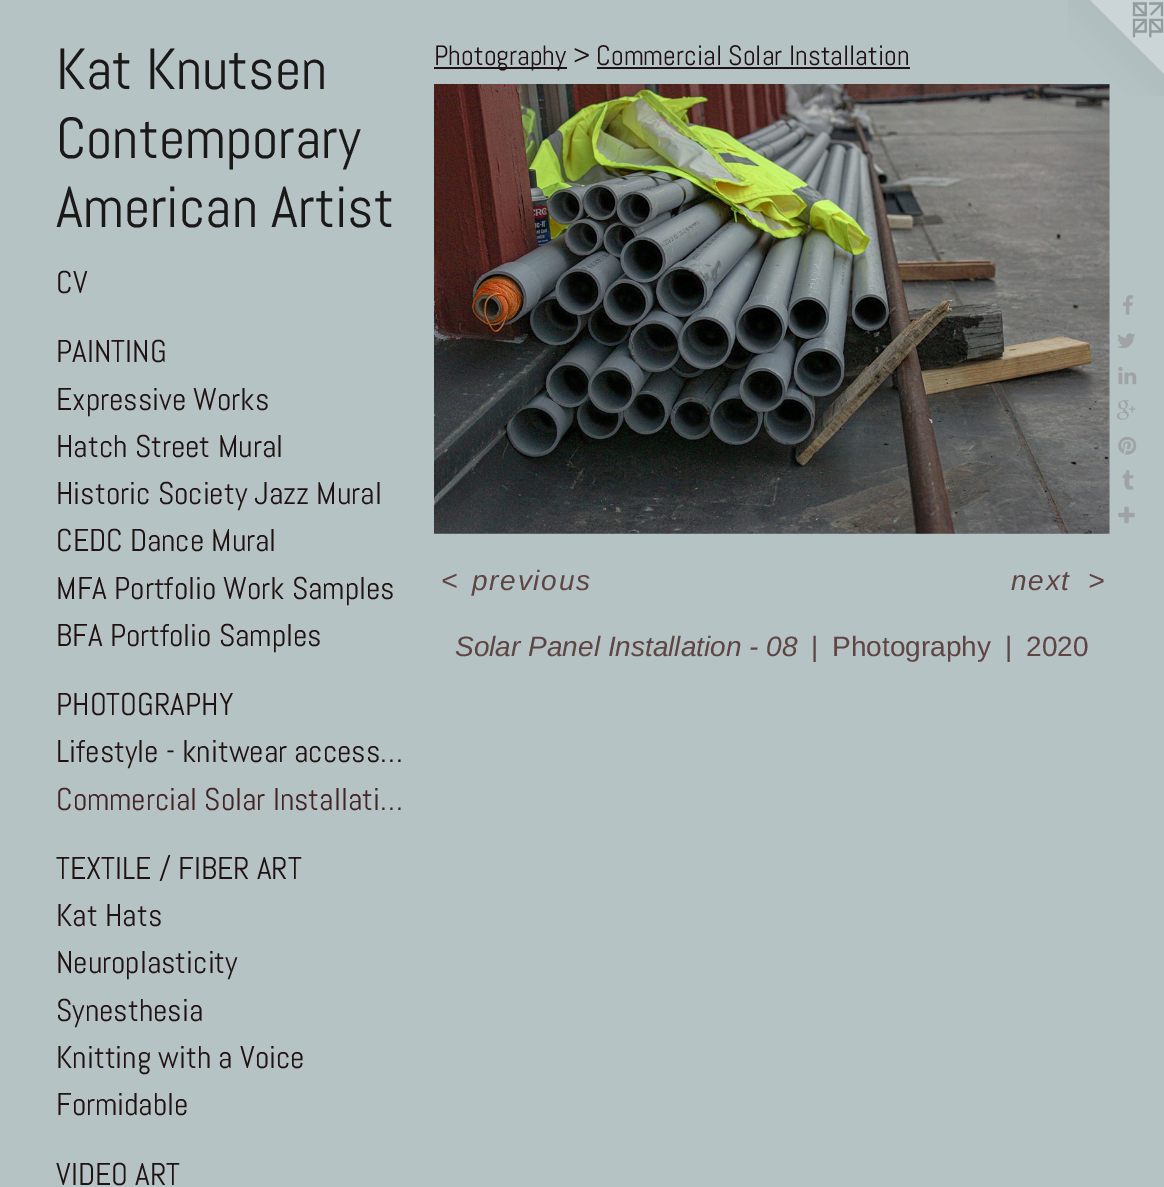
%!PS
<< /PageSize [1164 1187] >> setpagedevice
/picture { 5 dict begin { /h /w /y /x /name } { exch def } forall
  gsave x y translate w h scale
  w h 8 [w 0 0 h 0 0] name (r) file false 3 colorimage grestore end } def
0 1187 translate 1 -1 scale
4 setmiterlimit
0.71 0.765 0.773 setrgbcolor
0 0 1164 1187 rectfill
/Abel-Regular [57.75 0 0 -57.75 0 0] selectfont
0.106 0.094 0.094 setrgbcolor
56 89 moveto (Kat Knutsen) show
56 158 moveto (Contemporary) show
56 227 moveto (American Artist) show
/Abel-Regular [31.5 0 0 -31.5 0 0] selectfont
0.129 0.071 0.071 setrgbcolor
56 293 moveto (CV) show
56 362 moveto (PAINTING) show
56 410 moveto (Expressive Works) show
56 457 moveto (Hatch Street Mural) show
56 504 moveto (Historic Society Jazz Mural) show
56 551 moveto (CEDC Dance Mural) show
56 599 moveto (MFA Portfolio Work Samples) show
56 646 moveto (BFA Portfolio Samples) show
56 715 moveto (PHOTOGRAPHY) show
56 762 moveto (Lifestyle - knitwear access…) show
0.259 0.141 0.141 setrgbcolor
56 810 moveto (Commercial Solar Installati…) show
0.129 0.071 0.071 setrgbcolor
56 879 moveto (TEXTILE / FIBER ART) show
56 926 moveto (Kat Hats) show
56 973 moveto (Neuroplasticity) show
56 1021 moveto (Synesthesia) show
56 1068 moveto (Knitting with a Voice) show
56 1115 moveto (Formidable) show
56 1185 moveto (VIDEO ART) show
434 67 133 2 rectfill
/Abel-Regular [28 0 0 -28 0 0] selectfont
434 65 moveto (Photography > Commercial Solar Installation) show
597 67 313 2 rectfill
(img9.rgb) 1068 0 96 96 picture
(img1.rgb) 434 84 676 450 picture
(img2.rgb) 1122 295 11 20 picture
(img3.rgb) 1117 333 18 16 picture
(img4.rgb) 1118 367 19 18 picture
(img5.rgb) 1117 400 19 20 picture
(img6.rgb) 1118 436 19 19 picture
(img7.rgb) 1122 470 12 20 picture
(img8.rgb) 1118 506 17 18 picture
/LiberationSans-Italic [28 0 0 -28 0 0] selectfont
0.373 0.267 0.267 setrgbcolor
441 590 moveto 1.75 0 (<) ashow
472 590 moveto 1.75 0 (previous) ashow
1011 590 moveto 1.75 0 (next) ashow
1088 590 moveto 1.75 0 (>) ashow
455 656 moveto (Solar Panel Installation - 08) show
/LiberationSans-Regular [28 0 0 -28 0 0] selectfont
811 656 moveto (|) show
832 656 moveto (Photography) show
1005 656 moveto (|) show
1026 656 moveto (2020) show
showpage
